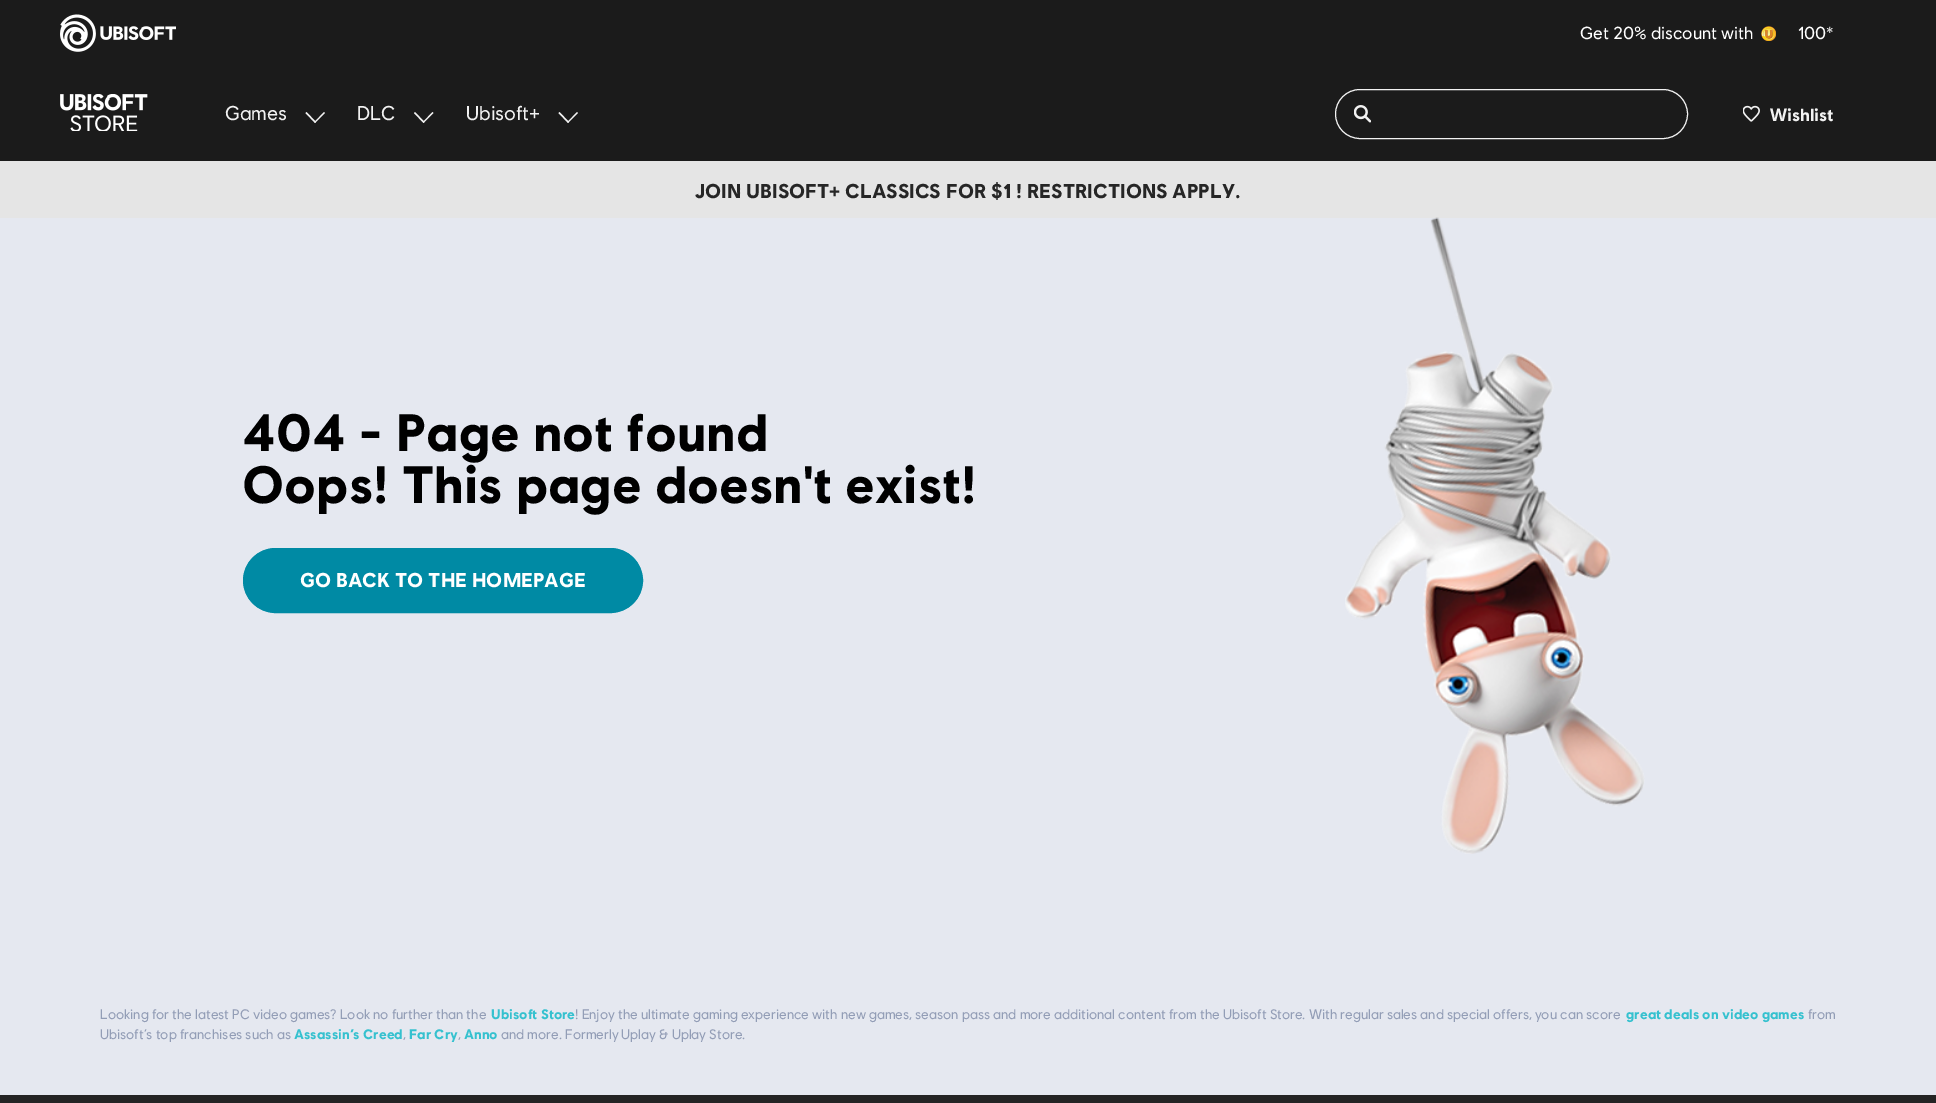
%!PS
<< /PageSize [1936 1103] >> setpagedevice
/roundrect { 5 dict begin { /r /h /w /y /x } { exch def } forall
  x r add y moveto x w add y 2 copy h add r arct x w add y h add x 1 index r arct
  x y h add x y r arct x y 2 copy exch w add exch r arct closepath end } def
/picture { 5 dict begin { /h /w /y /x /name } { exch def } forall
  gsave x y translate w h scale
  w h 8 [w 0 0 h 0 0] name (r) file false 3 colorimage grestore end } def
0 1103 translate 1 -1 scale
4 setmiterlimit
0.898 0.91 0.941 setrgbcolor
0 0 1936 1103 rectfill
0.106 setgray
0 0 1936 161 rectfill
(img1.rgb) 60 14 116 38 picture
/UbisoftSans-Regular [17.5 0 0 -17.5 0 0] selectfont
1 setgray
1580 39 moveto (Get 20% discount with) show
(img2.rgb) 1761 26 15 15 picture
1798 39 moveto (100*) show
(img3.rgb) 60 94 88 37 picture
/UbisoftSans-Regular [20 0 0 -20 0 0] selectfont
0.949 setgray
225 120 moveto (Games) show
newpath 325 113 moveto 315 123 lineto 314.5 122 lineto 324 112 lineto closepath fill
newpath 316 122 moveto 315 123 lineto 305.5 113 lineto 306.5 112 lineto closepath fill
357 120 moveto (DLC) show
newpath 433.5 113 moveto 423.5 123 lineto 423 122 lineto 432.5 112 lineto closepath fill
newpath 424.5 122 moveto 423.5 123 lineto 414 113 lineto 415 112 lineto closepath fill
466 120 moveto (Ubisoft+) show
newpath 578 113 moveto 568 123 lineto 567.5 122 lineto 577 112 lineto closepath fill
newpath 569 122 moveto 568 123 lineto 558.5 113 lineto 559.5 112 lineto closepath fill
1335.5 89.5 352 49 24.5 roundrect stroke
(img4.rgb) 1354 105 17 18 picture
(img5.rgb) 1743 105 17 17 picture
/NotoSans-Bold [17.5 0 0 -17.5 0 0] selectfont
1770 121 moveto (W) show
/UbisoftSans-Bold [17.5 0 0 -17.5 0 0] selectfont
1787 121 moveto (ishlist) show
0.898 setgray
0 161 1936 57 rectfill
/UbisoftSans-Bold [20 0 0 -20 0 0] selectfont
0.149 setgray
695 198 moveto (JOIN UBISOFT+ CLASSICS FOR $1 ! RESTRICTIONS APPLY.) show
/UbisoftSans-Bold [52.5 0 0 -52.5 0 0] selectfont
0 setgray
242 451 moveto (404 - Page not found) show
242 503 moveto (Oops! This page doesn't exist!) show
0 0.541 0.643 setrgbcolor
243.5 548.5 399 64 32 roundrect gsave fill grestore
stroke
/UbisoftSans-Bold [20 0 0 -20 0 0] selectfont
1 setgray
300 587 moveto (GO BACK TO THE HOMEPAGE) show
(img6.rgb) 1345 217 300 637 picture
/UbisoftSans-Regular [13.75 0 0 -13.75 0 0] selectfont
0.573 0.616 0.714 setrgbcolor
100 1019 moveto (Looking for the latest PC video games? Look no further than the) show
/UbisoftSans-Bold [13.75 0 0 -13.75 0 0] selectfont
0.208 0.757 0.812 setrgbcolor
491 1019 moveto (Ubisoft Store) show
/UbisoftSans-Regular [13.75 0 0 -13.75 0 0] selectfont
0.573 0.616 0.714 setrgbcolor
575 1019 moveto (! Enjoy the ultimate gaming experience with new games, season pass and more additional content from the Ubisoft Store. With regular sales and special offers, you can score) show
/UbisoftSans-Bold [13.75 0 0 -13.75 0 0] selectfont
0.208 0.757 0.812 setrgbcolor
1626 1019 moveto (great deals on video games) show
/UbisoftSans-Regular [13.75 0 0 -13.75 0 0] selectfont
0.573 0.616 0.714 setrgbcolor
1808 1019 moveto (from) show
100 1039 moveto (Ubisoft’s top franchises such as) show
/UbisoftSans-Bold [13.75 0 0 -13.75 0 0] selectfont
0.208 0.757 0.812 setrgbcolor
294 1039 moveto (Assassin’s Creed) show
/UbisoftSans-Regular [13.75 0 0 -13.75 0 0] selectfont
0.573 0.616 0.714 setrgbcolor
403 1039 moveto (,) show
/UbisoftSans-Bold [13.75 0 0 -13.75 0 0] selectfont
0.208 0.757 0.812 setrgbcolor
409 1039 moveto (Far Cry) show
/UbisoftSans-Regular [13.75 0 0 -13.75 0 0] selectfont
0.573 0.616 0.714 setrgbcolor
458 1039 moveto (,) show
/UbisoftSans-Bold [13.75 0 0 -13.75 0 0] selectfont
0.208 0.757 0.812 setrgbcolor
464 1039 moveto (Anno) show
/UbisoftSans-Regular [13.75 0 0 -13.75 0 0] selectfont
0.573 0.616 0.714 setrgbcolor
501 1039 moveto (and more. Formerly Uplay & Uplay Store.) show
0.141 setgray
0 1095 1936 8 rectfill
showpage
